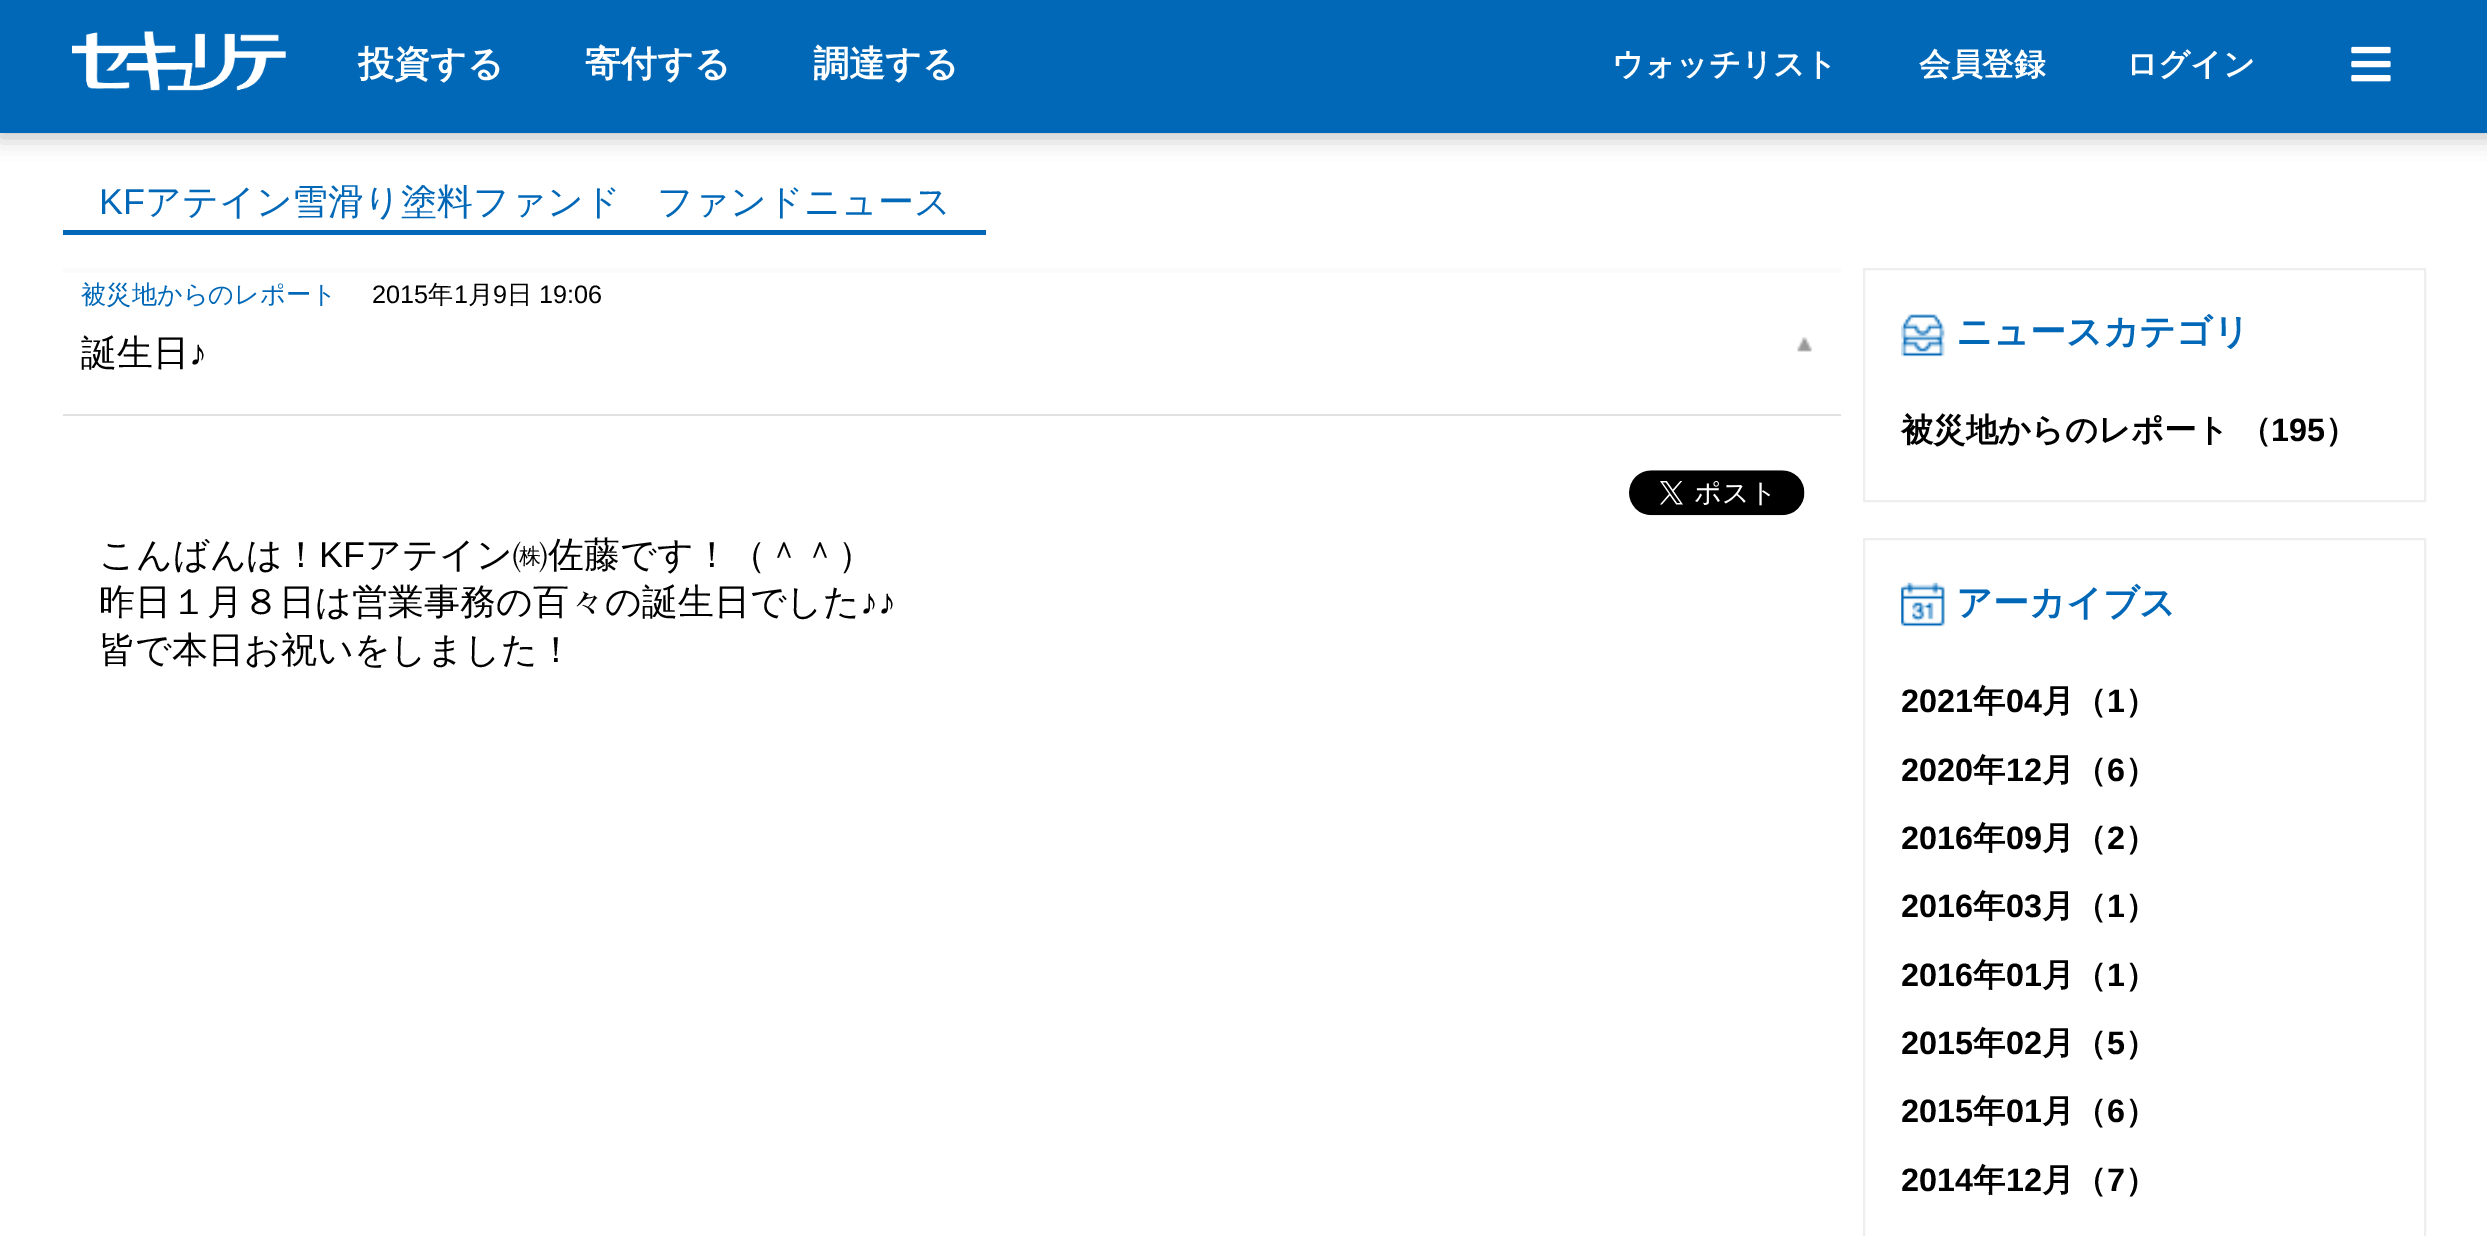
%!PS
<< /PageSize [2487 1236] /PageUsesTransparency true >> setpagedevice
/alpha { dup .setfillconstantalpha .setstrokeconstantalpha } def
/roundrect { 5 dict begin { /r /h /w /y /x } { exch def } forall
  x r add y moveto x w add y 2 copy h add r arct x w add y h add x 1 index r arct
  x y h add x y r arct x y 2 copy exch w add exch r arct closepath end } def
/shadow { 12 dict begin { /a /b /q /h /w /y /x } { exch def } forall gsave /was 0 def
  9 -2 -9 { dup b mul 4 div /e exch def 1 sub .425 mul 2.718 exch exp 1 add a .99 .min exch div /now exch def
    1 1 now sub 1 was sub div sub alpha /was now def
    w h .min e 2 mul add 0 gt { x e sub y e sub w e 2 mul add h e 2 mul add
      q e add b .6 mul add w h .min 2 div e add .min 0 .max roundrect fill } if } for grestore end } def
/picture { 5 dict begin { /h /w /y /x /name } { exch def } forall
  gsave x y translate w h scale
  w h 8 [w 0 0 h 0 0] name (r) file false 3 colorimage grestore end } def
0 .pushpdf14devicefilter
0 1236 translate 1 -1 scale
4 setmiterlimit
1 setgray
0 0 2487 1236 rectfill
0 setgray
0 5 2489 132 0 11 0.25 shadow
0.004 0.408 0.718 setrgbcolor
0 0 2487 133 rectfill
(img1.rgb) 72 31 214 60 picture
/WenQuanYiZenHei-Bold [36 0 0 -36 0 0] selectfont
1 setgray
358 76 moveto (投資する) show
585 76 moveto (寄付する) show
813 76 moveto (調達する) show
/WenQuanYiZenHei-Bold [31.5 0 0 -31.5 0 0] selectfont
1612 75 moveto (ウォッチリスト) show
1919 75 moveto (会員登録) show
2126 75 moveto (ログイン) show
(img2.rgb) 2351 46 40 36 picture
/LiberationSans-Regular [36 0 0 -36 0 0] selectfont
0.004 0.408 0.718 setrgbcolor
99 214 moveto (KF) show
/WenQuanYiZenHei-Medium [36 0 0 -36 0 0] selectfont
145 214 moveto (アテイン雪滑り塗料ファンド　ファンドニュース) show
0 0.408 0.718 setrgbcolor
63 230 923 5 rectfill
(img3.rgb) 1797 337 15 15 picture
0.984 setgray
63 268 1778 5 rectfill
0.882 setgray
63 414 1778 2 rectfill
/WenQuanYiZenHei-Medium [25.25 0 0 -25.25 0 0] selectfont
0.004 0.408 0.718 setrgbcolor
81 303 moveto (被災地からのレポート) show
/LiberationSans-Regular [25.25 0 0 -25.25 0 0] selectfont
0 setgray
372 303 moveto (2015) show
/WenQuanYiZenHei-Medium [25.25 0 0 -25.25 0 0] selectfont
428 303 moveto (年) show
/LiberationSans-Regular [25.25 0 0 -25.25 0 0] selectfont
454 303 moveto (1) show
/WenQuanYiZenHei-Medium [25.25 0 0 -25.25 0 0] selectfont
468 303 moveto (月) show
/LiberationSans-Regular [25.25 0 0 -25.25 0 0] selectfont
493 303 moveto (9) show
/WenQuanYiZenHei-Medium [25.25 0 0 -25.25 0 0] selectfont
507 303 moveto (日) show
/LiberationSans-Regular [25.25 0 0 -25.25 0 0] selectfont
539 303 moveto (19:06) show
/WenQuanYiZenHei-Medium [36 0 0 -36 0 0] selectfont
81 365 moveto (誕生日) show
/LiberationSans-Regular [36 0 0 -36 0 0] selectfont
189 365 moveto (♪) show
(img4.rgb) 1629 470 176 46 picture
/WenQuanYiZenHei-Medium [36 0 0 -36 0 0] selectfont
99 567 moveto (こんばんは！) show
/LiberationSans-Regular [36 0 0 -36 0 0] selectfont
319 567 moveto (KF) show
/WenQuanYiZenHei-Medium [36 0 0 -36 0 0] selectfont
365 567 moveto (アテイン㈱佐藤です！（＾＾）) show
99 614 moveto (昨日１月８日は営業事務の百々の誕生日でした) show
/LiberationSans-Regular [36 0 0 -36 0 0] selectfont
860 614 moveto (♪♪) show
/WenQuanYiZenHei-Medium [36 0 0 -36 0 0] selectfont
99 662 moveto (皆で本日お祝いをしました！) show
0.933 setgray
2 setlinewidth
1864 269 561 232 rectstroke
(img5.rgb) 1901 314 44 43 picture
/WenQuanYiZenHei-Bold [36 0 0 -36 0 0] selectfont
0.004 0.408 0.718 setrgbcolor
1956 344 moveto (ニュースカテゴリ) show
/WenQuanYiZenHei-Bold [32.4 0 0 -32.4 0 0] selectfont
0 setgray
1901 441 moveto (被災地からのレポート) show
2239 441 moveto (（) show
/LiberationSans-Bold [32.4 0 0 -32.4 0 0] selectfont
2271 441 moveto (195) show
/WenQuanYiZenHei-Bold [32.4 0 0 -32.4 0 0] selectfont
2325 441 moveto (）) show
0.933 setgray
1864 539 561 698 rectstroke
(img6.rgb) 1901 582 44 45 picture
/WenQuanYiZenHei-Bold [36 0 0 -36 0 0] selectfont
0.004 0.408 0.718 setrgbcolor
1956 615 moveto (アーカイブス) show
/LiberationSans-Bold [32.4 0 0 -32.4 0 0] selectfont
0 setgray
1901 712 moveto (2021) show
/WenQuanYiZenHei-Bold [32.4 0 0 -32.4 0 0] selectfont
1973 712 moveto (年) show
/LiberationSans-Bold [32.4 0 0 -32.4 0 0] selectfont
2006 712 moveto (04) show
/WenQuanYiZenHei-Bold [32.4 0 0 -32.4 0 0] selectfont
2042 712 moveto (月（) show
/LiberationSans-Bold [32.4 0 0 -32.4 0 0] selectfont
2107 712 moveto (1) show
/WenQuanYiZenHei-Bold [32.4 0 0 -32.4 0 0] selectfont
2125 712 moveto (）) show
/LiberationSans-Bold [32.4 0 0 -32.4 0 0] selectfont
1901 781 moveto (2020) show
/WenQuanYiZenHei-Bold [32.4 0 0 -32.4 0 0] selectfont
1973 781 moveto (年) show
/LiberationSans-Bold [32.4 0 0 -32.4 0 0] selectfont
2006 781 moveto (12) show
/WenQuanYiZenHei-Bold [32.4 0 0 -32.4 0 0] selectfont
2042 781 moveto (月（) show
/LiberationSans-Bold [32.4 0 0 -32.4 0 0] selectfont
2107 781 moveto (6) show
/WenQuanYiZenHei-Bold [32.4 0 0 -32.4 0 0] selectfont
2125 781 moveto (）) show
/LiberationSans-Bold [32.4 0 0 -32.4 0 0] selectfont
1901 849 moveto (2016) show
/WenQuanYiZenHei-Bold [32.4 0 0 -32.4 0 0] selectfont
1973 849 moveto (年) show
/LiberationSans-Bold [32.4 0 0 -32.4 0 0] selectfont
2006 849 moveto (09) show
/WenQuanYiZenHei-Bold [32.4 0 0 -32.4 0 0] selectfont
2042 849 moveto (月（) show
/LiberationSans-Bold [32.4 0 0 -32.4 0 0] selectfont
2107 849 moveto (2) show
/WenQuanYiZenHei-Bold [32.4 0 0 -32.4 0 0] selectfont
2125 849 moveto (）) show
/LiberationSans-Bold [32.4 0 0 -32.4 0 0] selectfont
1901 917 moveto (2016) show
/WenQuanYiZenHei-Bold [32.4 0 0 -32.4 0 0] selectfont
1973 917 moveto (年) show
/LiberationSans-Bold [32.4 0 0 -32.4 0 0] selectfont
2006 917 moveto (03) show
/WenQuanYiZenHei-Bold [32.4 0 0 -32.4 0 0] selectfont
2042 917 moveto (月（) show
/LiberationSans-Bold [32.4 0 0 -32.4 0 0] selectfont
2107 917 moveto (1) show
/WenQuanYiZenHei-Bold [32.4 0 0 -32.4 0 0] selectfont
2125 917 moveto (）) show
/LiberationSans-Bold [32.4 0 0 -32.4 0 0] selectfont
1901 986 moveto (2016) show
/WenQuanYiZenHei-Bold [32.4 0 0 -32.4 0 0] selectfont
1973 986 moveto (年) show
/LiberationSans-Bold [32.4 0 0 -32.4 0 0] selectfont
2006 986 moveto (01) show
/WenQuanYiZenHei-Bold [32.4 0 0 -32.4 0 0] selectfont
2042 986 moveto (月（) show
/LiberationSans-Bold [32.4 0 0 -32.4 0 0] selectfont
2107 986 moveto (1) show
/WenQuanYiZenHei-Bold [32.4 0 0 -32.4 0 0] selectfont
2125 986 moveto (）) show
/LiberationSans-Bold [32.4 0 0 -32.4 0 0] selectfont
1901 1054 moveto (2015) show
/WenQuanYiZenHei-Bold [32.4 0 0 -32.4 0 0] selectfont
1973 1054 moveto (年) show
/LiberationSans-Bold [32.4 0 0 -32.4 0 0] selectfont
2006 1054 moveto (02) show
/WenQuanYiZenHei-Bold [32.4 0 0 -32.4 0 0] selectfont
2042 1054 moveto (月（) show
/LiberationSans-Bold [32.4 0 0 -32.4 0 0] selectfont
2107 1054 moveto (5) show
/WenQuanYiZenHei-Bold [32.4 0 0 -32.4 0 0] selectfont
2125 1054 moveto (）) show
/LiberationSans-Bold [32.4 0 0 -32.4 0 0] selectfont
1901 1122 moveto (2015) show
/WenQuanYiZenHei-Bold [32.4 0 0 -32.4 0 0] selectfont
1973 1122 moveto (年) show
/LiberationSans-Bold [32.4 0 0 -32.4 0 0] selectfont
2006 1122 moveto (01) show
/WenQuanYiZenHei-Bold [32.4 0 0 -32.4 0 0] selectfont
2042 1122 moveto (月（) show
/LiberationSans-Bold [32.4 0 0 -32.4 0 0] selectfont
2107 1122 moveto (6) show
/WenQuanYiZenHei-Bold [32.4 0 0 -32.4 0 0] selectfont
2125 1122 moveto (）) show
/LiberationSans-Bold [32.4 0 0 -32.4 0 0] selectfont
1901 1191 moveto (2014) show
/WenQuanYiZenHei-Bold [32.4 0 0 -32.4 0 0] selectfont
1973 1191 moveto (年) show
/LiberationSans-Bold [32.4 0 0 -32.4 0 0] selectfont
2006 1191 moveto (12) show
/WenQuanYiZenHei-Bold [32.4 0 0 -32.4 0 0] selectfont
2042 1191 moveto (月（) show
/LiberationSans-Bold [32.4 0 0 -32.4 0 0] selectfont
2107 1191 moveto (7) show
/WenQuanYiZenHei-Bold [32.4 0 0 -32.4 0 0] selectfont
2125 1191 moveto (）) show
.poppdf14devicefilter showpage
